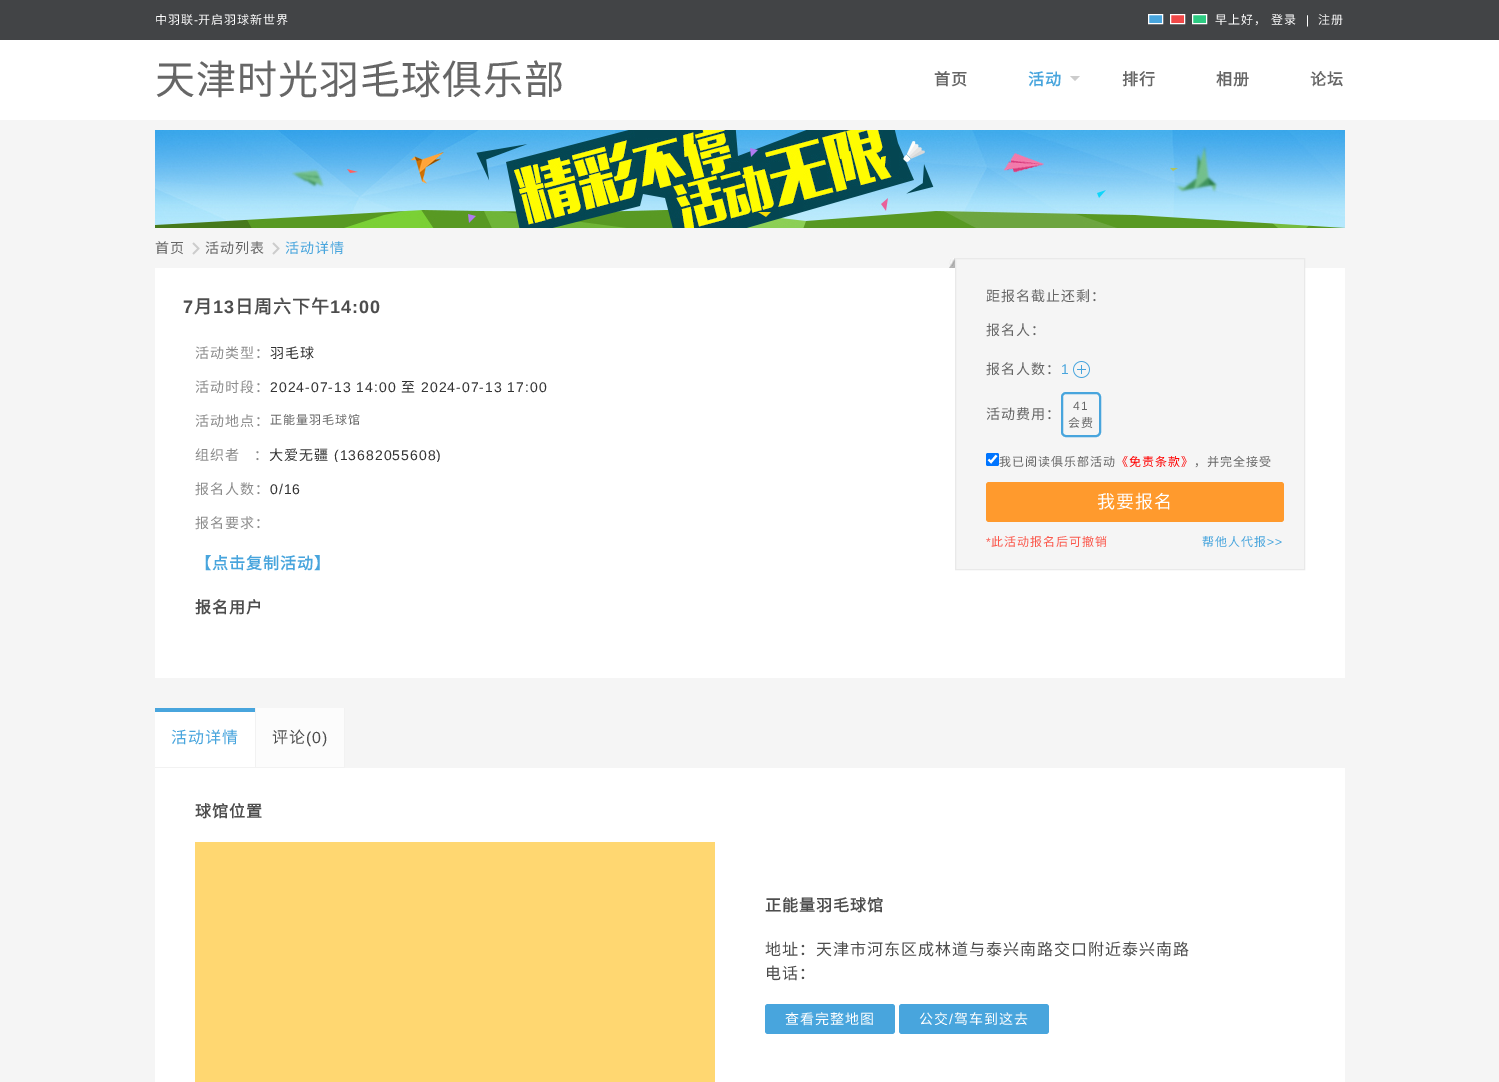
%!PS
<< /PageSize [1499 1082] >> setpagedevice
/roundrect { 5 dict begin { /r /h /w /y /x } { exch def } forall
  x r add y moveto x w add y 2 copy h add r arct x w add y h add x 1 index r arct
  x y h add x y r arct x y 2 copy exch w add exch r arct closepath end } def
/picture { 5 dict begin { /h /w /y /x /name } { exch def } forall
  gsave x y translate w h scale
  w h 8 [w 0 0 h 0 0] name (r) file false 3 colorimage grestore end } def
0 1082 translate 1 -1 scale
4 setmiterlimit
1 setgray
0 0 1499 1082 rectfill
0.259 0.267 0.275 setrgbcolor
0 0 1499 40 rectfill
/NotoSansCJKSC-Regular [12 0 0 -12 0 0] selectfont
1 setgray
155 24 moveto 1 0 (中羽联) ashow
/LiberationSans-Regular [12 0 0 -12 0 0] selectfont
194 24 moveto 1 0 (-) ashow
/NotoSansCJKSC-Regular [12 0 0 -12 0 0] selectfont
198 24 moveto 1 0 (开启羽球新世界) ashow
0.282 0.647 0.867 setrgbcolor
newpath 1148.5 14.5 moveto 1162.5 14.5 lineto 1162.5 23.5 lineto 1148.5 23.5 lineto closepath gsave fill grestore
1 setgray
stroke
0.945 0.282 0.282 setrgbcolor
newpath 1170.5 14.5 moveto 1184.5 14.5 lineto 1184.5 23.5 lineto 1170.5 23.5 lineto closepath gsave fill grestore
1 setgray
stroke
0.176 0.796 0.51 setrgbcolor
newpath 1192.5 14.5 moveto 1206.5 14.5 lineto 1206.5 23.5 lineto 1192.5 23.5 lineto closepath gsave fill grestore
1 setgray
stroke
1215 24 moveto 1 0 (早上好，) ashow
1271 24 moveto 1 0 (登录) ashow
/LiberationSans-Regular [12 0 0 -12 0 0] selectfont
1306 24 moveto 1 0 (|) ashow
/NotoSansCJKSC-Regular [12 0 0 -12 0 0] selectfont
1318 24 moveto 1 0 (注册) ashow
/NotoSansCJKSC-Regular [40 0 0 -40 0 0] selectfont
0.4 setgray
155 94 moveto 1 0 (天津时光羽毛球俱乐部) ashow
/NotoSansCJKSC-Bold [16 0 0 -16 0 0] selectfont
934 85 moveto 1 0 (首页) ashow
0.282 0.647 0.867 setrgbcolor
1028 85 moveto 1 0 (活动) ashow
0.8 setgray
newpath 1070 76 moveto 1080 76 lineto 1075 81 lineto closepath fill
0.4 setgray
1122 85 moveto 1 0 (排行) ashow
1216 85 moveto 1 0 (相册) ashow
1310 85 moveto 1 0 (论坛) ashow
0.961 setgray
0 120 1499 962 rectfill
(img1.rgb) 155 130 1190 98 picture
(img2.rgb) 192 242 8 13 picture
/NotoSansCJKSC-Regular [14 0 0 -14 0 0] selectfont
0.4 setgray
155 253 moveto 1 0 (首页) ashow
(img2.rgb) 272 242 8 13 picture
205 253 moveto 1 0 (活动列表) ashow
0.282 0.647 0.867 setrgbcolor
285 253 moveto 1 0 (活动详情) ashow
1 setgray
155 268 1190 410 rectfill
(img3.rgb) 949 258 6 10 picture
/LiberationSans-Bold [18 0 0 -18 0 0] selectfont
0.302 setgray
183 313 moveto 1 0 (7) ashow
/NotoSansCJKSC-Bold [18 0 0 -18 0 0] selectfont
194 313 moveto 1 0 (月) ashow
/LiberationSans-Bold [18 0 0 -18 0 0] selectfont
213 313 moveto 1 0 (13) ashow
/NotoSansCJKSC-Bold [18 0 0 -18 0 0] selectfont
235 313 moveto 1 0 (日周六下午) ashow
/LiberationSans-Bold [18 0 0 -18 0 0] selectfont
330 313 moveto 1 0 (14:00) ashow
/NotoSansCJKSC-Regular [14 0 0 -14 0 0] selectfont
0.549 setgray
195 358 moveto 1 0 (活动类型：) ashow
0.2 setgray
270 358 moveto 1 0 (羽毛球) ashow
0.549 setgray
195 392 moveto 1 0 (活动时段：) ashow
/LiberationSans-Regular [14 0 0 -14 0 0] selectfont
0.2 setgray
270 392 moveto 1 0 (2024-07-13 14:00) ashow
/NotoSansCJKSC-Regular [14 0 0 -14 0 0] selectfont
401 392 moveto 1 0 (至) ashow
/LiberationSans-Regular [14 0 0 -14 0 0] selectfont
421 392 moveto 1 0 (2024-07-13 17:00) ashow
/NotoSansCJKSC-Regular [14 0 0 -14 0 0] selectfont
0.549 setgray
195 426 moveto 1 0 (活动地点：) ashow
/NotoSansCJKSC-Regular [12 0 0 -12 0 0] selectfont
0.4 setgray
270 424 moveto 1 0 (正能量羽毛球馆) ashow
/NotoSansCJKSC-Regular [14 0 0 -14 0 0] selectfont
0.549 setgray
195 460 moveto 1 0 (组织者) ashow
254 460 moveto 1 0 (：) ashow
0.2 setgray
269 460 moveto 1 0 (大爱无疆) ashow
gsave
195 448 760 14 rectclip
/LiberationSans-Regular [14 0 0 -14 0 0] selectfont
334 460 moveto 1 0 (\(13682055608\)) ashow
grestore
0.549 setgray
195 494 moveto 1 0 (报名人数：) ashow
/LiberationSans-Regular [14 0 0 -14 0 0] selectfont
0.2 setgray
270 494 moveto 1 0 (0/16) ashow
/NotoSansCJKSC-Regular [14 0 0 -14 0 0] selectfont
0.549 setgray
195 528 moveto 1 0 (报名要求：) ashow
/NotoSansCJKSC-Bold [16 0 0 -16 0 0] selectfont
0.282 0.647 0.867 setrgbcolor
195 569 moveto 1 0 (【点击复制活动】) ashow
0.961 setgray
956 268 348 301 rectfill
0.914 setgray
955.5 258.5 349 311 rectstroke
/NotoSansCJKSC-Regular [14 0 0 -14 0 0] selectfont
0.4 setgray
986 301 moveto 1 0 (距报名截止还剩：) ashow
986 335 moveto 1 0 (报名人：) ashow
986 374 moveto 1 0 (报名人数：) ashow
/LiberationSans-Regular [14 0 0 -14 0 0] selectfont
0.282 0.647 0.867 setrgbcolor
1061 374 moveto 1 0 (1) ashow
1073 361 17 17 rectfill
(img4.rgb) 1069 357 25 25 picture
/NotoSansCJKSC-Regular [14 0 0 -14 0 0] selectfont
0.4 setgray
986 419 moveto 1 0 (活动费用：) ashow
0.282 0.647 0.867 setrgbcolor
2 setlinewidth
1062 393 38 43 4 roundrect stroke
/LiberationSans-Regular [12 0 0 -12 0 0] selectfont
0.4 setgray
1073 410 moveto 1 0 (41) ashow
/NotoSansCJKSC-Regular [12 0 0 -12 0 0] selectfont
1068 427 moveto 1 0 (会费) ashow
0 0.459 1 setrgbcolor
986 453 13 13 2 roundrect fill
1 setgray
2.1 setlinewidth
newpath 988.5 459.5 moveto 991 462 lineto 996.5 455.5 lineto stroke
0.4 setgray
999 466 moveto 1 0 (我已阅读俱乐部活动) ashow
1 0 0 setrgbcolor
1116 466 moveto 1 0 (《免责条款》) ashow
0.4 setgray
1194 466 moveto 1 0 (，并完全接受) ashow
1 0.604 0.176 setrgbcolor
986 482 298 40 3 roundrect fill
/NotoSansCJKSC-Regular [18 0 0 -18 0 0] selectfont
1 setgray
1097 508 moveto 1 0 (我要报名) ashow
/LiberationSans-Regular [12 0 0 -12 0 0] selectfont
0.984 0.345 0.298 setrgbcolor
986 546 moveto 1 0 (*) ashow
/NotoSansCJKSC-Regular [12 0 0 -12 0 0] selectfont
991 546 moveto 1 0 (此活动报名后可撤销) ashow
0.282 0.647 0.867 setrgbcolor
1202 546 moveto 1 0 (帮他人代报) ashow
/LiberationSans-Regular [12 0 0 -12 0 0] selectfont
1267 546 moveto 1 0 (>>) ashow
/NotoSansCJKSC-Bold [16 0 0 -16 0 0] selectfont
0.302 setgray
195 613 moveto 1 0 (报名用户) ashow
1 setgray
155 768 1190 314 rectfill
155 712 100 55 rectfill
0.949 setgray
155 767 101 1 rectfill
0.282 0.647 0.867 setrgbcolor
155 708 100 4 rectfill
/NotoSansCJKSC-Regular [16 0 0 -16 0 0] selectfont
171 743 moveto 1 0 (活动详情) ashow
0.988 setgray
256 708 88 59 rectfill
0.949 setgray
344 708 1 60 rectfill
255 767 90 1 rectfill
255 708 1 60 rectfill
0.302 setgray
272 743 moveto 1 0 (评论) ashow
/LiberationSans-Regular [16 0 0 -16 0 0] selectfont
306 743 moveto 1 0 (\(0\)) ashow
/NotoSansCJKSC-Bold [16 0 0 -16 0 0] selectfont
195 817 moveto 1 0 (球馆位置) ashow
1 0.843 0.443 setrgbcolor
195 842 520 240 rectfill
0.302 setgray
765 911 moveto 1 0 (正能量羽毛球馆) ashow
/NotoSansCJKSC-Regular [16 0 0 -16 0 0] selectfont
765 955 moveto 1 0 (地址：天津市河东区成林道与泰兴南路交口附近泰兴南路) ashow
765 979 moveto 1 0 (电话：) ashow
0.282 0.647 0.867 setrgbcolor
765 1004 130 30 3 roundrect fill
/NotoSansCJKSC-Regular [14 0 0 -14 0 0] selectfont
1 setgray
785 1024 moveto 1 0 (查看完整地图) ashow
0.282 0.647 0.867 setrgbcolor
899 1004 150 30 3 roundrect fill
1 setgray
919 1024 moveto 1 0 (公交) ashow
/LiberationSans-Regular [14 0 0 -14 0 0] selectfont
949 1024 moveto 1 0 (/) ashow
/NotoSansCJKSC-Regular [14 0 0 -14 0 0] selectfont
954 1024 moveto 1 0 (驾车到这去) ashow
showpage
